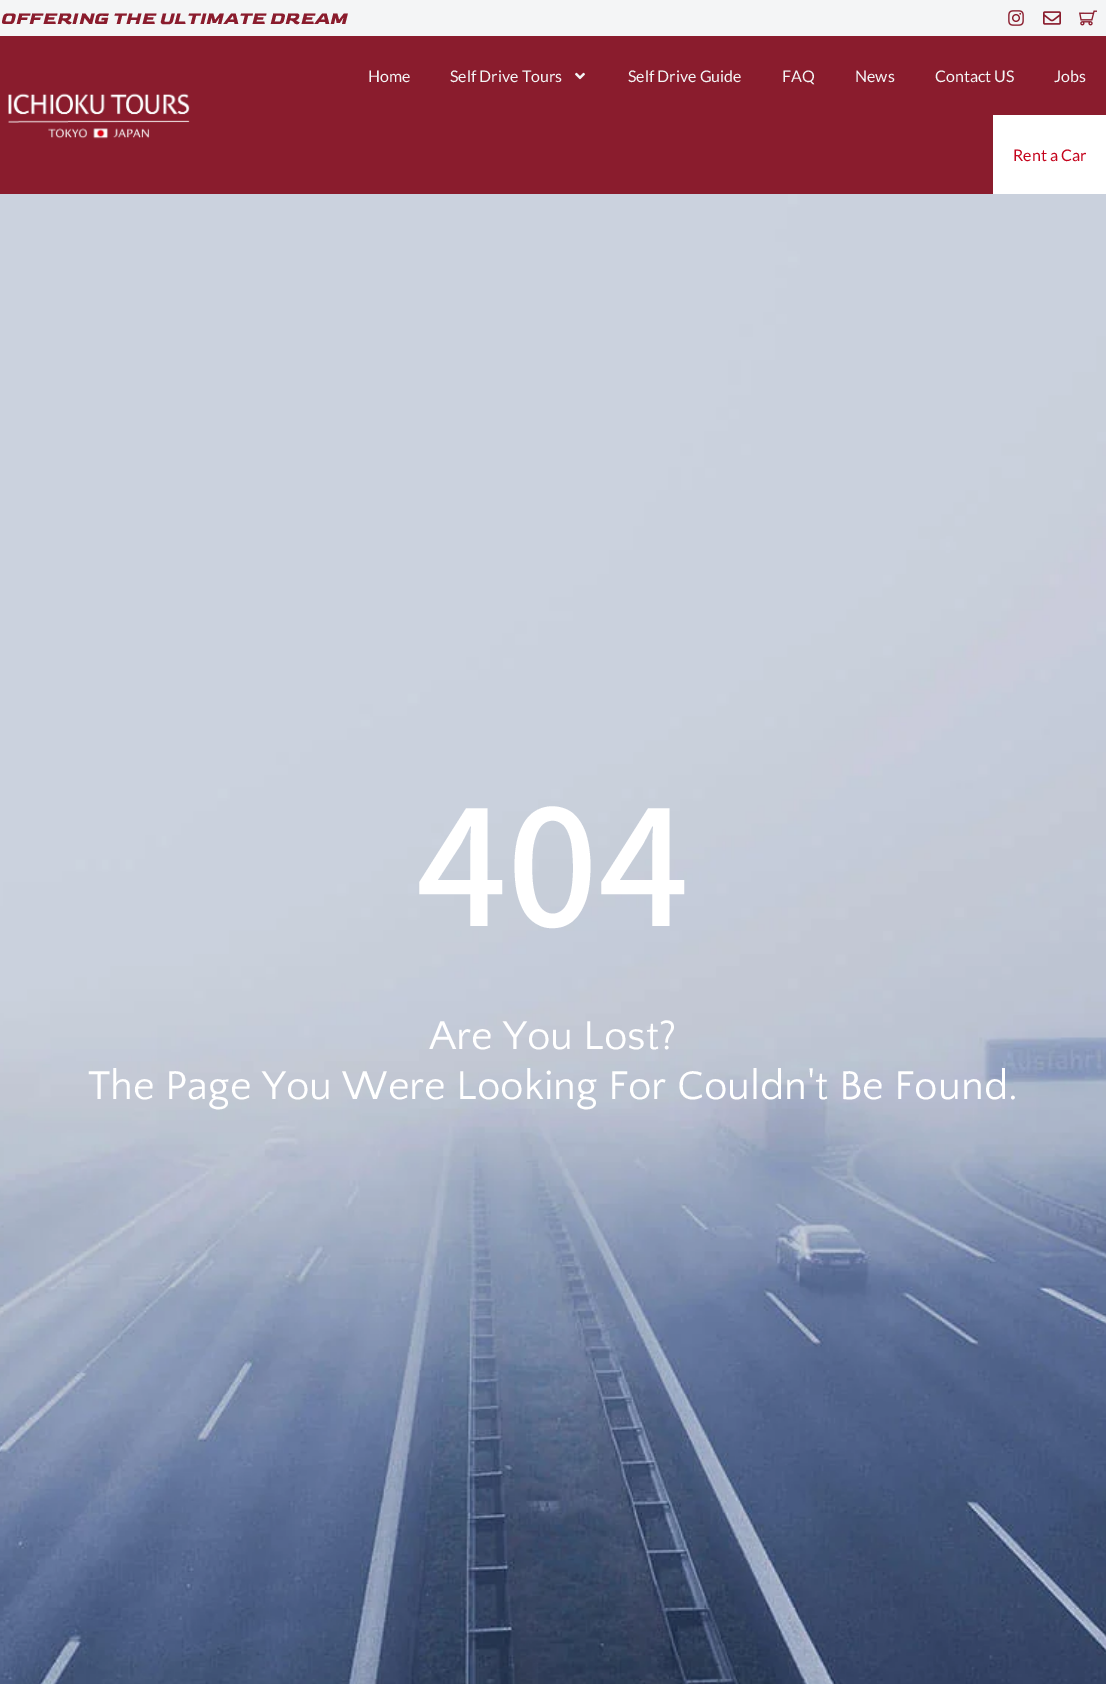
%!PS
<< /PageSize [1106 1684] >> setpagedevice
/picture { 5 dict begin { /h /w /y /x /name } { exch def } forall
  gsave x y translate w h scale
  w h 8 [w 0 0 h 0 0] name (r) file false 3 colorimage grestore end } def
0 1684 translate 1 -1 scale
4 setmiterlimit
0.957 0.961 0.965 setrgbcolor
0 0 1106 1684 rectfill
/Goldman-BoldItalic [18 0 0 -18 0 0] selectfont
0.541 0.11 0.176 setrgbcolor
0 24 moveto (OFFERING THE ULTIMATE DREAM) show
(img1.rgb) 1008 10 16 16 picture
(img2.rgb) 1043 11 18 14 picture
(img3.rgb) 1079 10 18 16 picture
0 36 1106 158 rectfill
(img4.rgb) 8 93 182 46 picture
/Lato-Regular [16 0 0 -16 0 0] selectfont
0.957 0.961 0.965 setrgbcolor
368 82 moveto (Home) show
450 82 moveto (Self Drive Tours) show
(img5.rgb) 575 72 10 8 picture
628 82 moveto (Self Drive Guide) show
782 82 moveto (FAQ) show
855 82 moveto (News) show
935 82 moveto (Contact US) show
1054 82 moveto (Jobs) show
1 setgray
993 115 113 79 rectfill
0.773 0.012 0.11 setrgbcolor
1013 161 moveto (Rent a Car) show
(img6.rgb) 0 194 1106 1490 picture
/NotoSansJP-Medium [160 0 0 -160 0 0] selectfont
1 setgray
416 926 moveto (404) show
/QuattrocentoSans-Regular [42 0 0 -42 0 0] selectfont
429 1049 moveto (Are You Lost?) show
88 1099 moveto (The Page You Were Looking For Couldn't Be Found.) show
showpage
